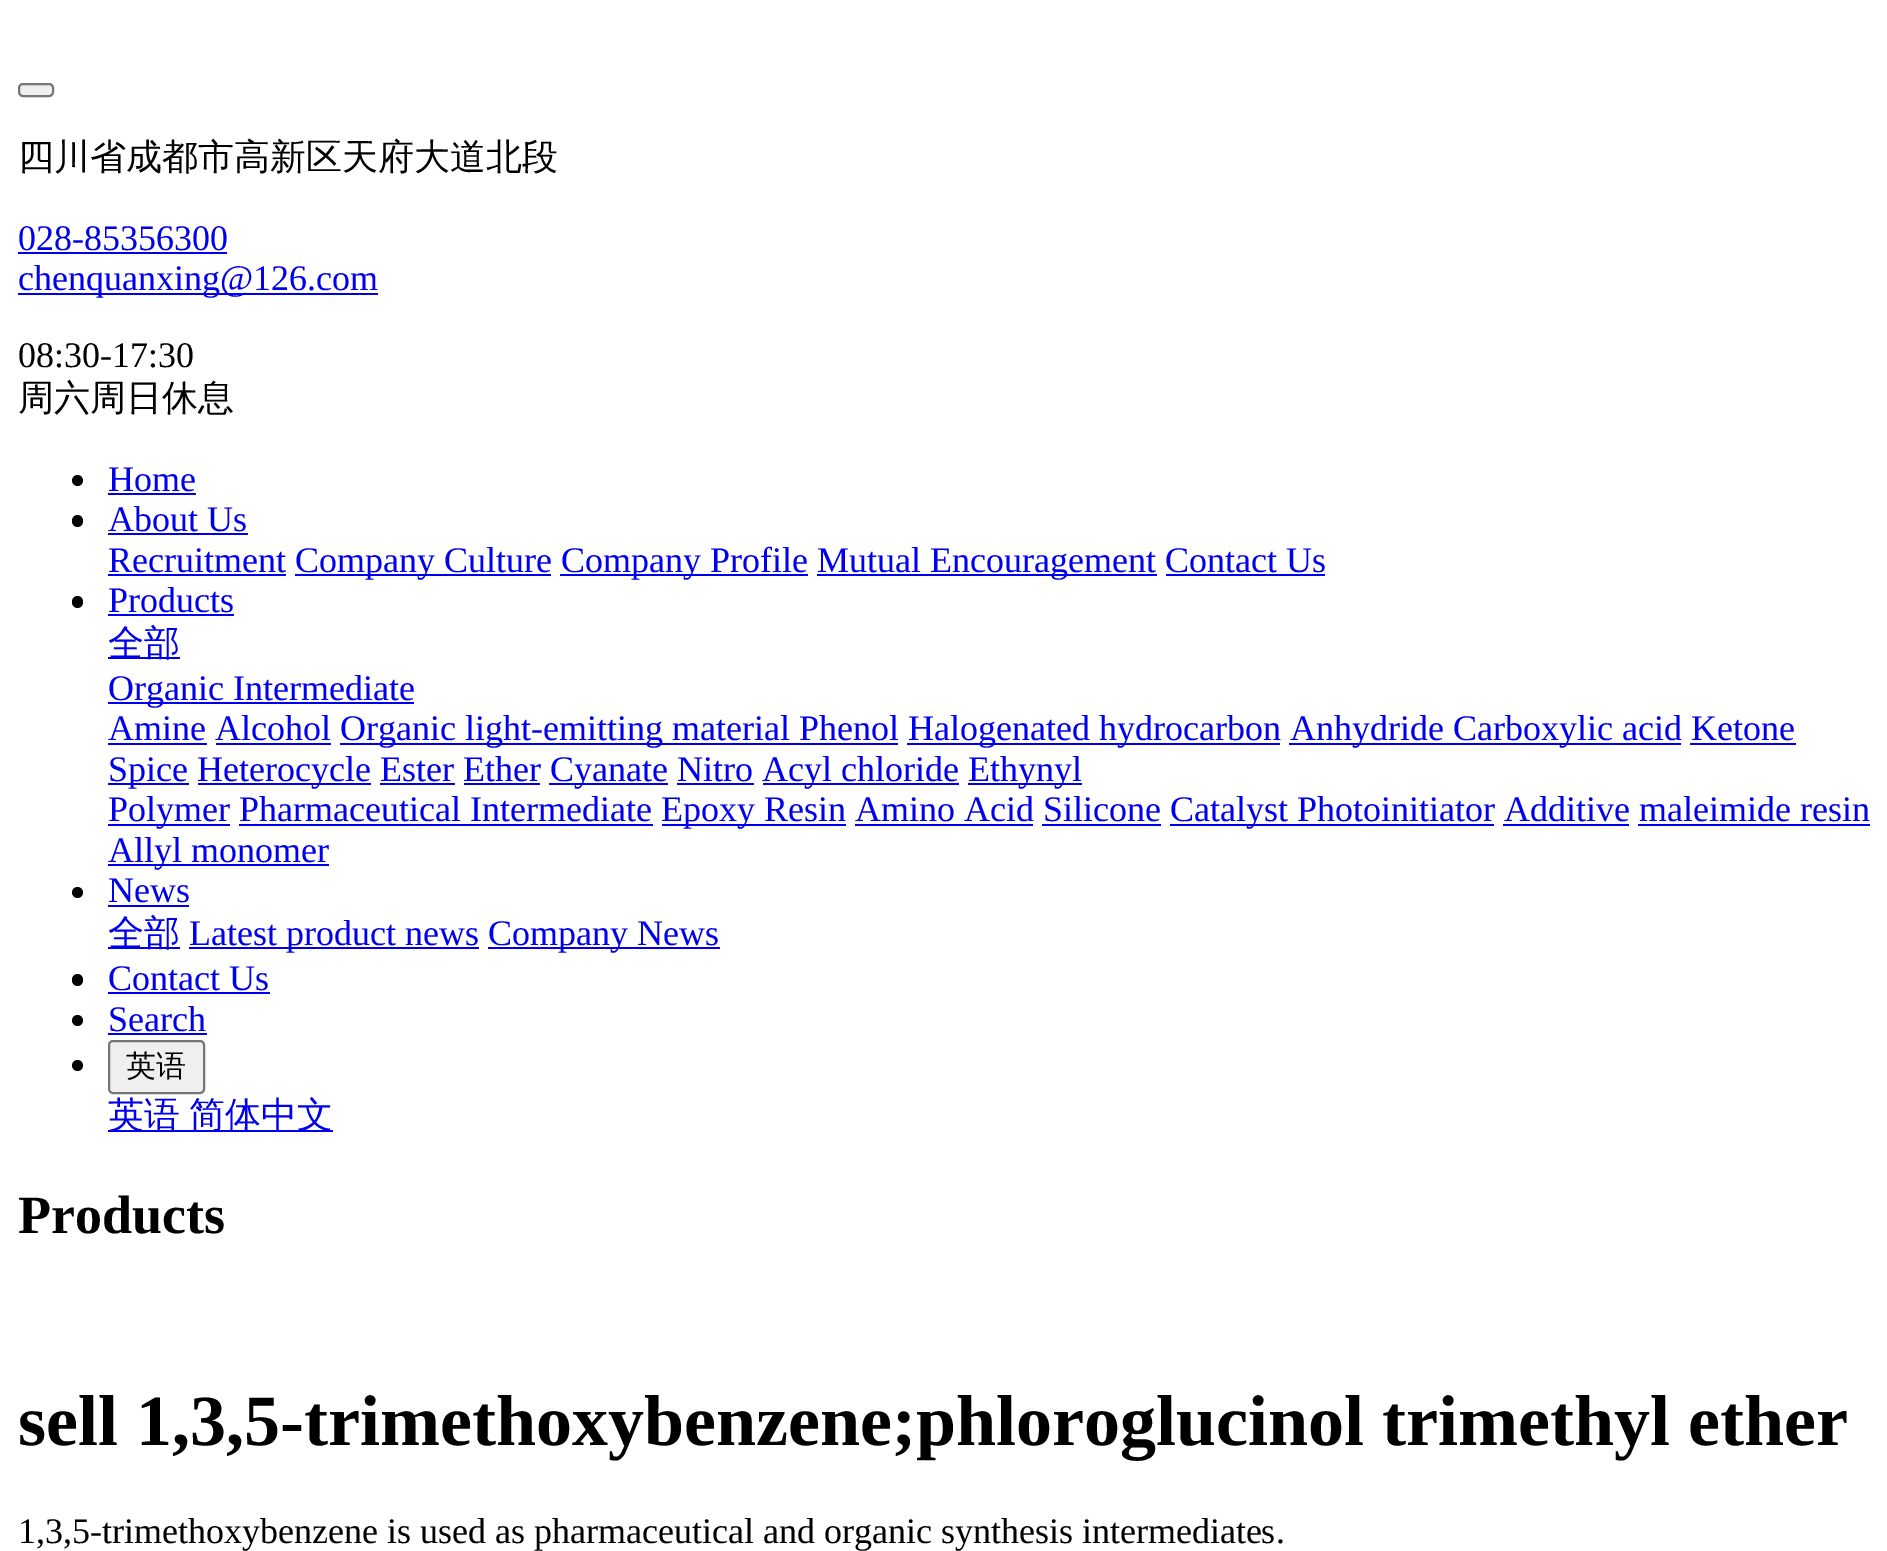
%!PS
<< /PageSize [1887 1551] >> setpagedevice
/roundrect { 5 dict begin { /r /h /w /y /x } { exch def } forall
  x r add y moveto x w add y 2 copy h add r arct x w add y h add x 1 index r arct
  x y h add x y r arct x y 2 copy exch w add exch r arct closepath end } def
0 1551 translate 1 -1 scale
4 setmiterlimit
1 setgray
0 0 1887 1551 rectfill
0.937 setgray
19 84 34 12 4 roundrect gsave fill grestore
0.463 setgray
2 setlinewidth
stroke
/WenQuanYiZenHei-Medium [36 0 0 -36 0 0] selectfont
0 setgray
18 169 moveto (四川省成都市高新区天府大道北段) show
/LiberationSerif-Regular [36 0 0 -36 0 0] selectfont
0 0 0.933 setrgbcolor
18 250 moveto (028-85356300) show
18 252 209 2 rectfill
18 293 360 2 rectfill
18 290 moveto (chenquanxing@126.com) show
0 setgray
18 367 moveto (08:30-17:30) show
/WenQuanYiZenHei-Medium [36 0 0 -36 0 0] selectfont
18 410 moveto (周六周日休息) show
newpath 77.5 480.5 5.5 0 360 arc closepath fill
/LiberationSerif-Regular [36 0 0 -36 0 0] selectfont
0 0 0.933 setrgbcolor
108 491 moveto (Home) show
108 493 88 2 rectfill
0 setgray
72 515 11 12 5.5 roundrect fill
0 0 0.933 setrgbcolor
108 531 moveto (About Us) show
108 533 140 2 rectfill
108 572 moveto (Recruitment) show
108 574 178 2 rectfill
295 574 256 2 rectfill
295 572 moveto (Company Culture) show
560 574 248 2 rectfill
561 572 moveto (Company Profile) show
817 574 340 2 rectfill
817 572 moveto (Mutual Encouragement Contact Us) show
1166 574 159 2 rectfill
0 setgray
72 596 11 12 5.5 roundrect fill
0 0 0.933 setrgbcolor
108 612 moveto (Products) show
108 614 126 2 rectfill
108 657 72 2 rectfill
/WenQuanYiZenHei-Medium [36 0 0 -36 0 0] selectfont
108 655 moveto (全部) show
108 702 306 2 rectfill
/LiberationSerif-Regular [36 0 0 -36 0 0] selectfont
108 700 moveto (Organic Intermediate) show
108 740 moveto (Amine Alcohol) show
108 743 99 2 rectfill
340 743 558 2 rectfill
340 740 moveto (Organic light-emitting material Phenol) show
907 743 373 2 rectfill
908 740 moveto (Halogenated hydrocarbon) show
1289 743 392 2 rectfill
1290 740 moveto (Anhydride Carboxylic acid Ketone) show
216 743 115 2 rectfill
1690 743 106 2 rectfill
108 783 81 2 rectfill
108 781 moveto (Spice) show
198 783 173 2 rectfill
197 781 moveto (Heterocycle Ester Ether) show
549 783 119 2 rectfill
550 781 moveto (Cyanate Nitro) show
763 783 196 2 rectfill
762 781 moveto (Acyl chloride) show
968 783 114 2 rectfill
968 781 moveto (Ethynyl) show
380 783 75 2 rectfill
464 783 76 2 rectfill
677 783 77 2 rectfill
108 824 122 2 rectfill
108 821 moveto (Polymer Pharmaceutical Intermediate) show
662 824 184 2 rectfill
661 821 moveto (Epoxy Resin Amino Acid Silicone) show
1170 824 324 2 rectfill
1170 821 moveto (Catalyst Photoinitiator Additive maleimide resin) show
239 824 414 2 rectfill
855 824 178 2 rectfill
1042 824 119 2 rectfill
1503 824 126 2 rectfill
1638 824 232 2 rectfill
108 864 221 2 rectfill
108 862 moveto (Allyl monomer) show
0 setgray
newpath 77.5 892.5 5.5 0 360 arc closepath fill
0 0 0.933 setrgbcolor
108 902 moveto (News) show
108 905 81 2 rectfill
108 947 72 2 rectfill
/WenQuanYiZenHei-Medium [36 0 0 -36 0 0] selectfont
108 945 moveto (全部) show
189 947 290 2 rectfill
/LiberationSerif-Regular [36 0 0 -36 0 0] selectfont
189 945 moveto (Latest product news) show
488 947 232 2 rectfill
488 945 moveto (Company News) show
0 setgray
72 974 11 12 5.5 roundrect fill
0 0 0.933 setrgbcolor
108 990 moveto (Contact Us) show
108 992 162 2 rectfill
0 setgray
newpath 77.5 1020.5 5.5 0 360 arc closepath fill
0 0 0.933 setrgbcolor
108 1031 moveto (Search) show
108 1033 99 2 rectfill
0 setgray
newpath 77.5 1065.5 5.5 0 360 arc closepath fill
0.937 setgray
109 1041 95 52 4 roundrect gsave fill grestore
0.463 setgray
stroke
/WenQuanYiZenHei-Medium [30 0 0 -30 0 0] selectfont
0 setgray
126 1076 moveto (英语) show
0 0 0.933 setrgbcolor
108 1130 225 2 rectfill
/WenQuanYiZenHei-Medium [36 0 0 -36 0 0] selectfont
108 1127 moveto (英语) show
189 1127 moveto (简体中文) show
/LiberationSerif-Bold [54 0 0 -54 0 0] selectfont
0 setgray
18 1233 moveto (Products) show
/LiberationSerif-Bold [72 0 0 -72 0 0] selectfont
18 1445 moveto (sell 1,3,5-trimethoxybenzene;phloroglucinol trimethyl ether) show
/LiberationSerif-Regular [36 0 0 -36 0 0] selectfont
18 1543 moveto (1,3,5-trimethoxybenzene is used as pharmaceutical and organic synthesis intermediates.) show
showpage
